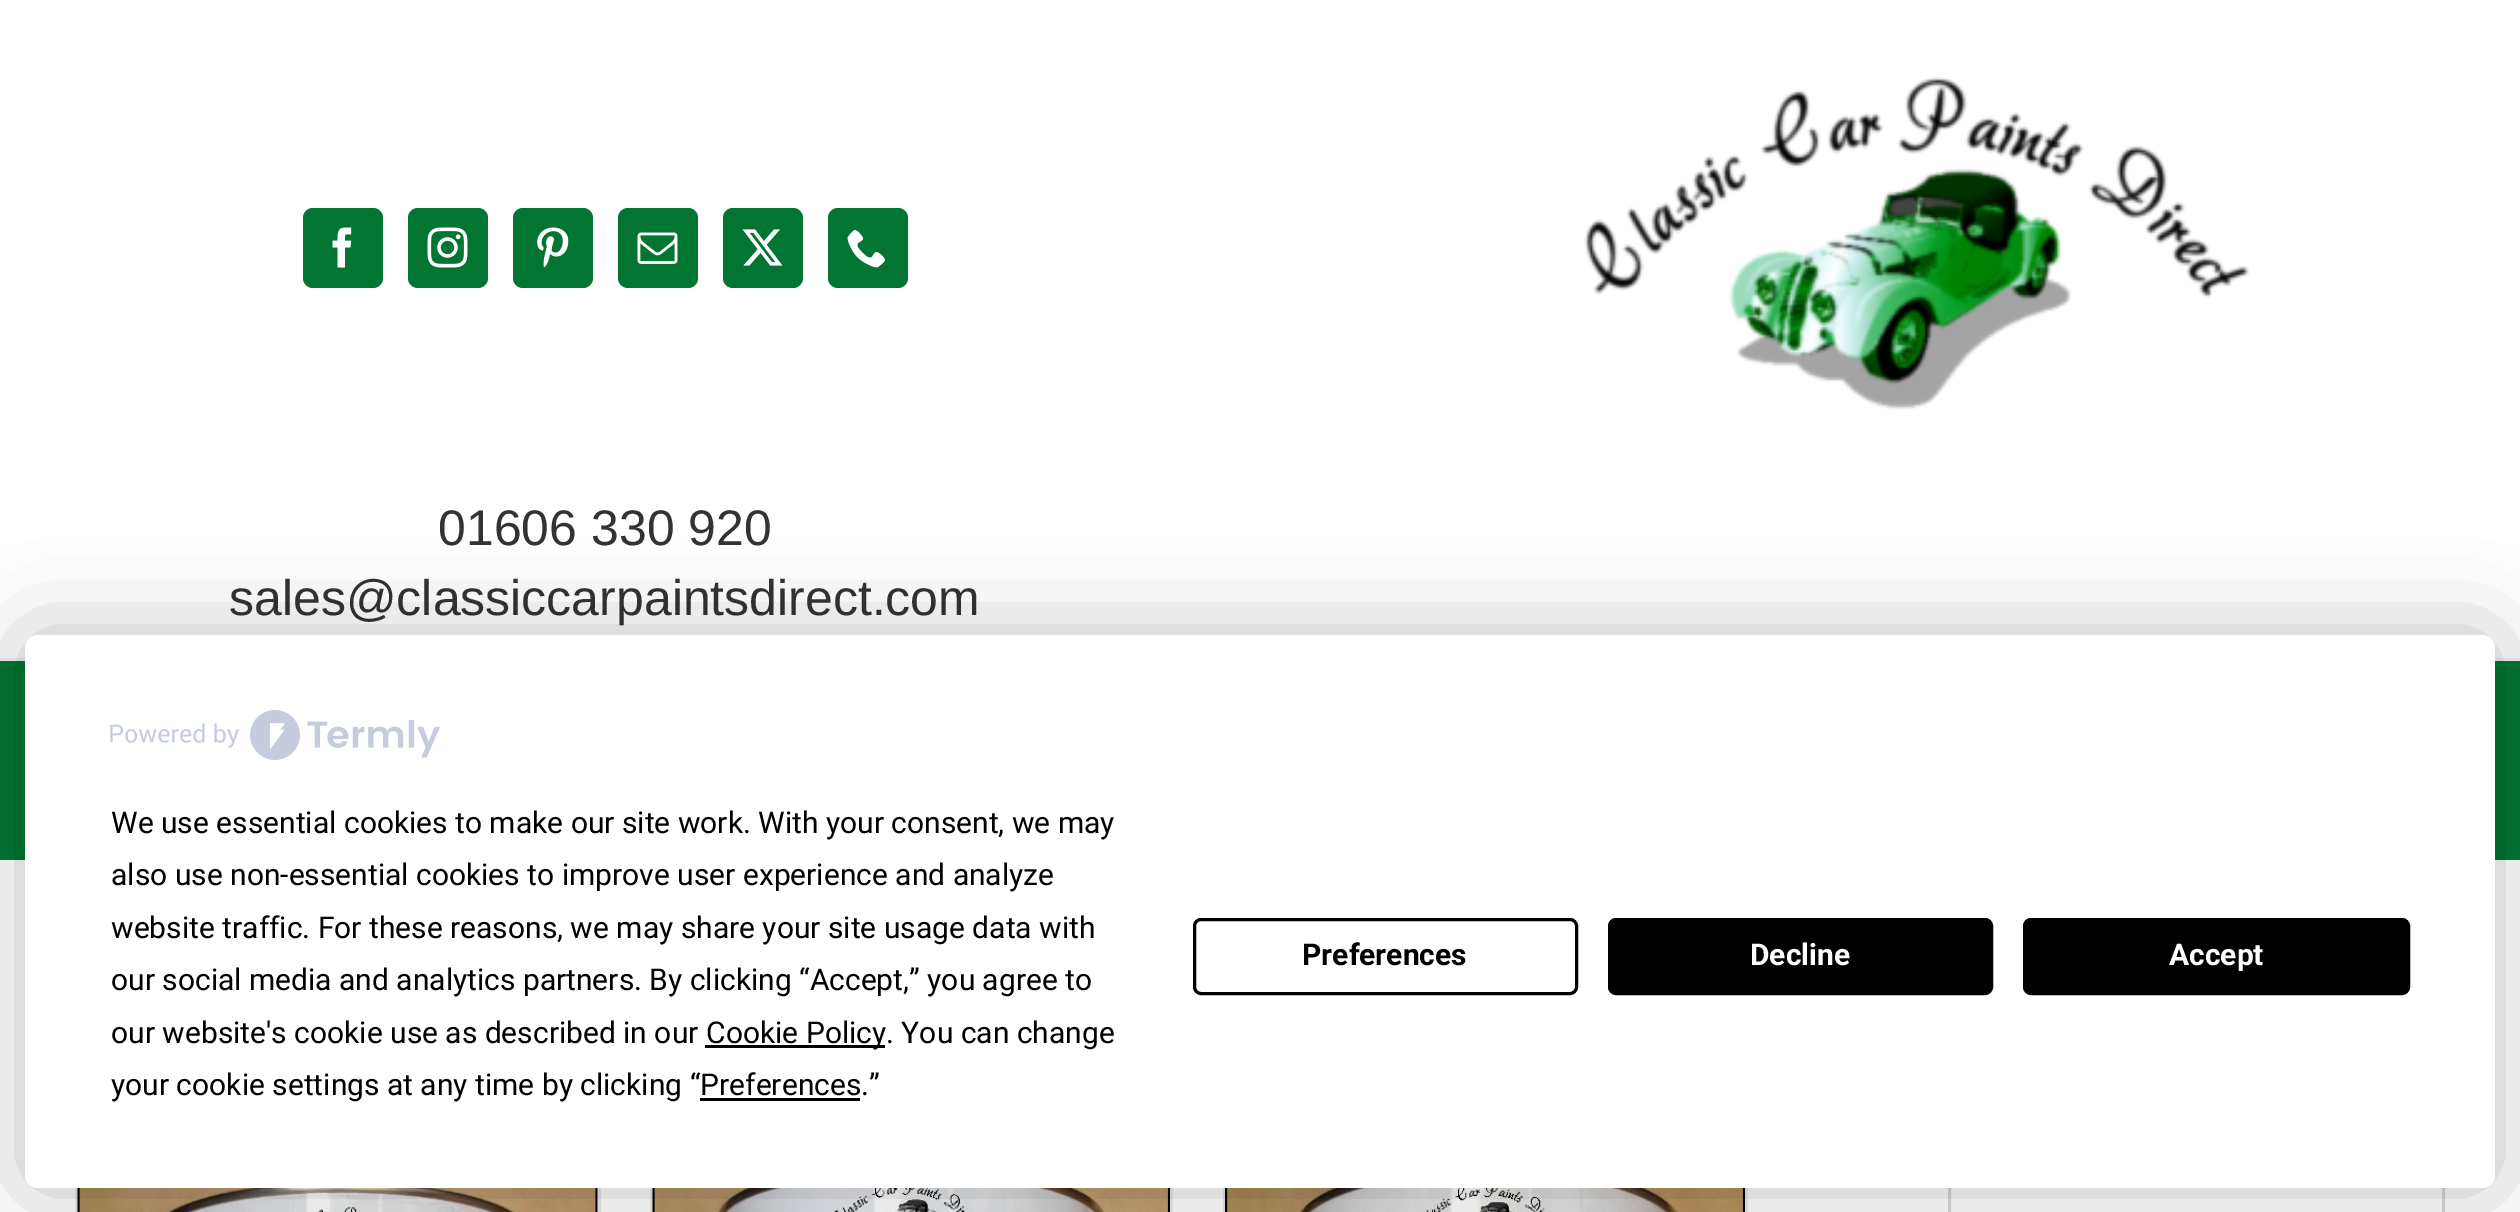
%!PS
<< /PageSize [2520 1212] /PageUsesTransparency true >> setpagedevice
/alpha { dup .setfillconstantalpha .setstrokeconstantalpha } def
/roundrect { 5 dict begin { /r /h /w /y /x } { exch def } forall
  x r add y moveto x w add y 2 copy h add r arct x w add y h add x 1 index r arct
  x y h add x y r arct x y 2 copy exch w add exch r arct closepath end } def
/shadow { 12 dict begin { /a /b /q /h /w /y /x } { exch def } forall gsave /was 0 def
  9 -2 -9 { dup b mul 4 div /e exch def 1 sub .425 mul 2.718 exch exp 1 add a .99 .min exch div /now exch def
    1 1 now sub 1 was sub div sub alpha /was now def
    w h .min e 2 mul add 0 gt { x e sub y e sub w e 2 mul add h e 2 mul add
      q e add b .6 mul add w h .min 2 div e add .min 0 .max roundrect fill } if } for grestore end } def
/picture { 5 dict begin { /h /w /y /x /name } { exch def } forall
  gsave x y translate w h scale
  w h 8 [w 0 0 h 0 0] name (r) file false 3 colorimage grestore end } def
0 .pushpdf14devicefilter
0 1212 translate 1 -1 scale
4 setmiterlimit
1 setgray
0 0 2520 1212 rectfill
0.949 setgray
0 658 2520 3 rectfill
0.008 0.459 0.196 setrgbcolor
303 208 80 80 10 roundrect fill
(img1.rgb) 332 227 20 41 picture
408 208 80 80 10 roundrect fill
(img2.rgb) 427 227 41 41 picture
513 208 80 80 10 roundrect fill
(img3.rgb) 537 227 32 41 picture
618 208 80 80 10 roundrect fill
(img4.rgb) 637 232 41 32 picture
723 208 80 80 10 roundrect fill
(img5.rgb) 742 229 41 37 picture
828 208 80 80 10 roundrect fill
(img6.rgb) 847 230 38 38 picture
(img7.rgb) 1584 77 666 333 picture
/LiberationSans-Regular [50 0 0 -50 0 0] selectfont
0.2 setgray
438 545 moveto (01606 330 920) show
229 615 moveto (sales@classiccarpaintsdirect.com) show
0.008 0.459 0.196 setrgbcolor
0 661 2520 199 rectfill
0.922 0.918 0.918 setrgbcolor
598 1188 3 24 rectfill
75 1188 3 24 rectfill
(img8.rgb) 77 1188 521 24 picture
1170 1188 3 24 rectfill
650 1188 3 24 rectfill
(img9.rgb) 652 1188 518 24 picture
1745 1188 3 24 rectfill
1223 1188 2 24 rectfill
(img10.rgb) 1225 1188 520 24 picture
0.847 setgray
3 setlinewidth
1949.5 1161.5 494 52 rectstroke
0 setgray
25 635 2470 553 13 44 0.25 shadow
1 setgray
25 635 2470 553 13 roundrect fill
(img11.rgb) 110 710 330 50 picture
/Roboto-Regular [30 0 0 -30 0 0] selectfont
0 setgray
111 833 moveto (We use essential cookies to make our site work. With your consent, we may) show
111 885 moveto (also use non-essential cookies to improve user experience and analyze) show
111 938 moveto (website traffic. For these reasons, we may share your site usage data with) show
111 990 moveto (our social media and analytics partners. By clicking “Accept,” you agree to) show
111 1043 moveto (our website's cookie use as described in our) show
705 1045 180 3 rectfill
706 1043 moveto (Cookie Policy. You can change) show
111 1095 moveto (your cookie settings at any time by clicking “Preferences.”) show
700 1098 160 3 rectfill
1194.5 919.5 382 74 6.5 roundrect stroke
/Roboto-Bold [30 0 0 -30 0 0] selectfont
1302 965 moveto (Preferences) show
1609.5 919.5 382 74 6.5 roundrect gsave fill grestore
stroke
1 setgray
1750 965 moveto (Decline) show
0 setgray
2024.5 919.5 384 74 6.5 roundrect gsave fill grestore
stroke
1 setgray
2169 965 moveto (Accept) show
.poppdf14devicefilter showpage
